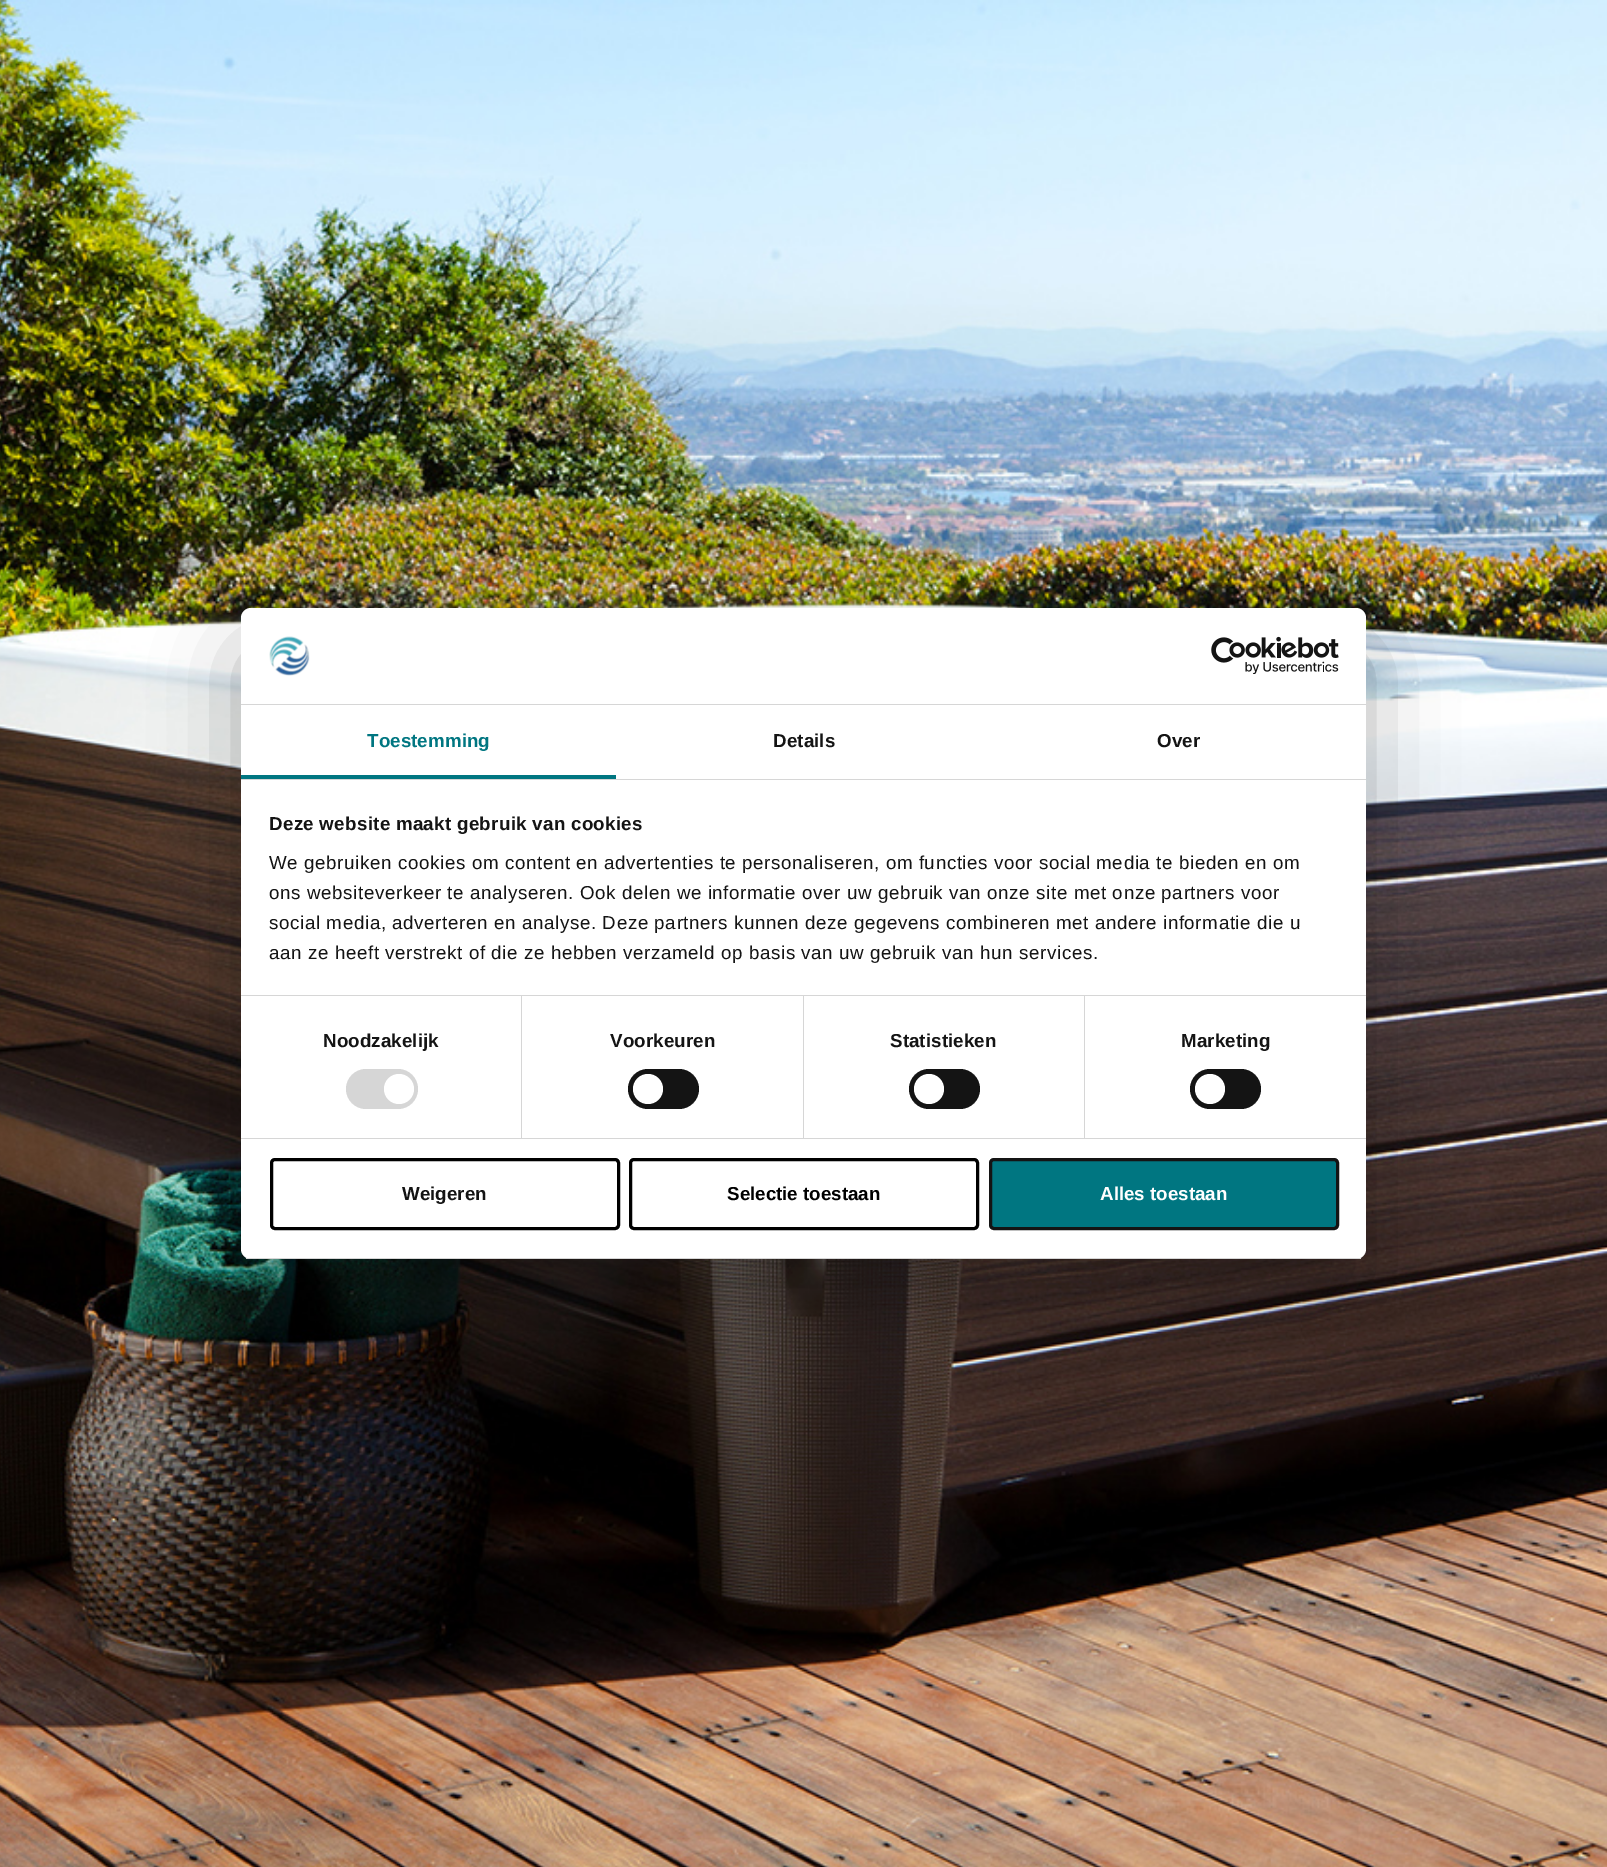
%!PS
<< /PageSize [1607 1867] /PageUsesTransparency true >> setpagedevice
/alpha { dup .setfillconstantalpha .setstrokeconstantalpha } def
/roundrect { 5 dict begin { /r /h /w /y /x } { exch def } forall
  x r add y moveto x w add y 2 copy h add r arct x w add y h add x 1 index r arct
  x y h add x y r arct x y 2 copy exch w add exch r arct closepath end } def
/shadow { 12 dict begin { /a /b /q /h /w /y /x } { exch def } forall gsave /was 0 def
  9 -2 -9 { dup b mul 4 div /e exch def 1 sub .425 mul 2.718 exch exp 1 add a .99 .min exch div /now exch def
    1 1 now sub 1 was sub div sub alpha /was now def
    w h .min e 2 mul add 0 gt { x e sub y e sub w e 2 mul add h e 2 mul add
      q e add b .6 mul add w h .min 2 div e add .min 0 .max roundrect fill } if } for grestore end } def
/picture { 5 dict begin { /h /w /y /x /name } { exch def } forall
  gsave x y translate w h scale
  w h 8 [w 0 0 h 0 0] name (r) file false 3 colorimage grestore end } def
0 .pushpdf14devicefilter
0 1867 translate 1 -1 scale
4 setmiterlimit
1 setgray
0 0 1607 1867 rectfill
(img1.rgb) 0 0 1607 1867 picture
0 setgray
241 648 1125 651 10 42.5 0.3 shadow
1 setgray
241 608 1125 651 10 roundrect fill
0.839 setgray
241 704 1125 1 rectfill
(img2.rgb) 269 636 41 40 picture
(img3.rgb) 1211 636 128 38 picture
241 779 1125 1 rectfill
0 0.463 0.506 setrgbcolor
241 775 375 4 rectfill
/LiberationSans-Bold [18.75 0 0 -18.75 0 0] selectfont
367 747 moveto 0.1 0 (Toestemming) ashow
0.078 setgray
773 747 moveto 0.1 0 (Details) ashow
1157 747 moveto 0.1 0 (Over) ashow
0.839 setgray
241 995 1125 1 rectfill
0.078 setgray
269 830 moveto 0.3 0 (Deze website maakt gebruik van cookies) ashow
/LiberationSans-Regular [18.75 0 0 -18.75 0 0] selectfont
269 869 moveto 0.62 0 (We gebruiken cookies om content en advertenties te personaliseren, om functies voor social media te bieden en om) ashow
269 899 moveto 0.62 0 (ons websiteverkeer te analyseren. Ook delen we informatie over uw gebruik van onze site met onze partners voor) ashow
269 929 moveto 0.62 0 (social media, adverteren en analyse. Deze partners kunnen deze gegevens combineren met andere informatie die u) ashow
269 959 moveto 0.62 0 (aan ze heeft verstrekt of die ze hebben verzameld op basis van uw gebruik van hun services.) ashow
0.839 setgray
241 1138 1125 1 rectfill
521 996 1 142 rectfill
/LiberationSans-Bold [18.75 0 0 -18.75 0 0] selectfont
0.078 setgray
323 1047 moveto 0.1 0 (Noodzakelijk) ashow
0.839 setgray
346 1069 72 40 20 roundrect fill
1 setgray
newpath 399 1089 15 0 360 arc closepath fill
0.839 setgray
803 996 1 142 rectfill
0.078 setgray
610 1047 moveto 0.1 0 (Voorkeuren) ashow
628 1069 71 40 20 roundrect fill
1 setgray
newpath 648 1089 15 0 360 arc closepath fill
0.839 setgray
1084 996 1 142 rectfill
0.078 setgray
890 1047 moveto 0.1 0 (Statistieken) ashow
909 1069 71 40 20 roundrect fill
1 setgray
newpath 929 1089 15 0 360 arc closepath fill
0.078 setgray
1181 1047 moveto 0.1 0 (Marketing) ashow
1190 1069 71 40 20 roundrect fill
1 setgray
newpath 1210 1089 15 0 360 arc closepath fill
gsave
241 608 1125 651 10 roundrect clip newpath
0.839 setgray
241 1258 1125 1 rectfill
grestore
0 setgray
3 setlinewidth
271.5 1159.5 347 69 3.5 roundrect stroke
0.078 setgray
402 1200 moveto (Weigeren) show
0 setgray
630.5 1159.5 347 69 3.5 roundrect stroke
727 1200 moveto (Selectie toestaan) show
0 0.463 0.506 setrgbcolor
990.5 1159.5 347 69 3.5 roundrect gsave fill grestore
0.078 setgray
stroke
1 setgray
1100 1200 moveto (Alles toestaan) show
.poppdf14devicefilter showpage
